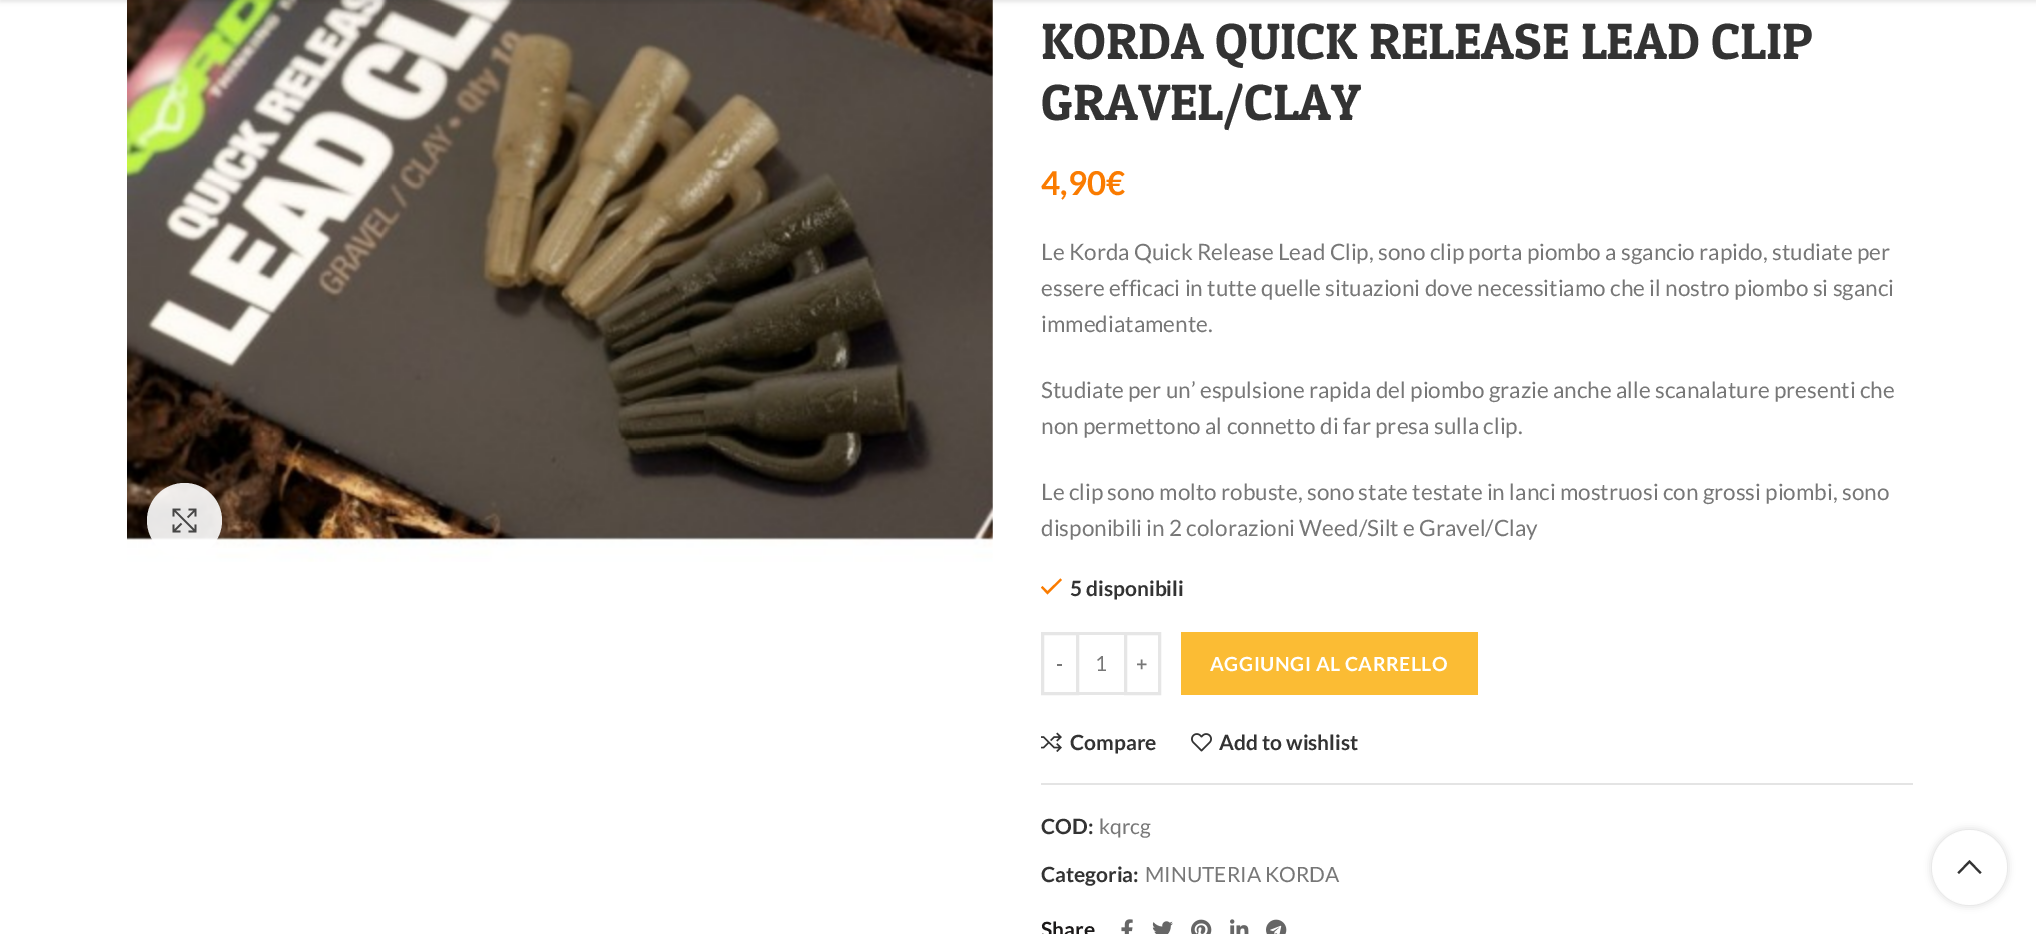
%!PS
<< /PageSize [2036 934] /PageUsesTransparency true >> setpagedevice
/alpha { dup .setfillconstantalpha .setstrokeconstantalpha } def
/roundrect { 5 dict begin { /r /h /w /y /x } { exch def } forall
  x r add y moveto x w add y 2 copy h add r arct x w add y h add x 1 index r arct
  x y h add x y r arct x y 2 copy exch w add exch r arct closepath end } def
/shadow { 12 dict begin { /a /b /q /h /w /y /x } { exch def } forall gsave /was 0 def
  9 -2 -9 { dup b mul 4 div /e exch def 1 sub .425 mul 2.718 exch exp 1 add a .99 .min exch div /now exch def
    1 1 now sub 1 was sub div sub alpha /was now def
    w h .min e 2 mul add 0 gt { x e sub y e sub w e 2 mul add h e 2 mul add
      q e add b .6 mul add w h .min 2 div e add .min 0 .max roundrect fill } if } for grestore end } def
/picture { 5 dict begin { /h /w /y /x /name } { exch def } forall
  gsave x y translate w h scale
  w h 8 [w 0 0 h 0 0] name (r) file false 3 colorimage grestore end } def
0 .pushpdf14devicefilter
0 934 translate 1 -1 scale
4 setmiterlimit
1 setgray
0 0 2036 934 rectfill
(img1.rgb) 127 0 866 562 picture
0 setgray
0 -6 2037 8 0 2 0.1 shadow
0.9 alpha
1 setgray
newpath 184.5 520.5 37.5 0 360 arc closepath fill
1 alpha
(img2.rgb) 172 508 25 25 picture
/PatuaOne-Regular [51 0 0 -51 0 0] selectfont
0.2 setgray
1041 59 moveto (KORDA QUICK RELEASE LEAD CLIP) show
1041 120 moveto (GRAVEL/CLAY) show
/Lato-Bold [33 0 0 -33 0 0] selectfont
0.98 0.482 0 setrgbcolor
1041 195 moveto (4,90€) show
/Lato-Regular [22.5 0 0 -22.5 0 0] selectfont
0.467 setgray
1041 260 moveto (Le Korda Quick Release Lead Clip, sono clip porta piombo a sgancio rapido, studiate per) show
1041 296 moveto (essere efficaci in tutte quelle situazioni dove necessitiamo che il nostro piombo si sganci) show
1041 332 moveto (immediatamente.) show
1041 398 moveto (Studiate per un’ espulsione rapida del piombo grazie anche alle scanalature presenti che) show
1041 434 moveto (non permettono al connetto di far presa sulla clip.) show
1041 500 moveto (Le clip sono molto robuste, sono state testate in lanci mostruosi con grossi piombi, sono) show
1041 536 moveto (disponibili in 2 colorazioni Weed/Silt e Gravel/Clay) show
0.98 0.482 0 setrgbcolor
newpath 1047.5 591 moveto 1060.5 578.5 lineto 1062 580 lineto 1047.5 594.5 lineto 1041 587.5 lineto 1042.5 586 lineto closepath fill
/Lato-Bold [21 0 0 -21 0 0] selectfont
0.2 setgray
1070 596 moveto (5 disponibili) show
0.902 setgray
3 setlinewidth
1042.5 633.5 35 60 rectstroke
/Lato-Bold [19.5 0 0 -19.5 0 0] selectfont
0.467 setgray
1056 671 moveto 0.5 0 (-) ashow
0.902 setgray
1079 632 45 3 rectfill
1079 692 45 3 rectfill
/Lato-Regular [21 0 0 -21 0 0] selectfont
0.467 setgray
1095 671 moveto (1) show
0.902 setgray
1125.5 633.5 34 60 rectstroke
/Lato-Bold [19.5 0 0 -19.5 0 0] selectfont
0.467 setgray
1136 671 moveto 0.5 0 (+) ashow
0.984 0.737 0.204 setrgbcolor
1181 632 297 63 rectfill
1 setgray
1210 671 moveto 0.5 0 (AGGIUNGI AL CARRELLO) ashow
(img3.rgb) 1041 732 21 20 picture
/Lato-Bold [21 0 0 -21 0 0] selectfont
0.2 setgray
1070 750 moveto (Compare) show
(img4.rgb) 1191 733 21 19 picture
1219 750 moveto (Add to wishlist) show
0.894 setgray
1041 783 872 2 rectfill
0.2 setgray
1041 834 moveto (COD:) show
/Lato-Regular [21 0 0 -21 0 0] selectfont
0.467 setgray
1099 834 moveto (kqrcg) show
/Lato-Bold [21 0 0 -21 0 0] selectfont
0.2 setgray
1041 882 moveto (Categoria:) show
/Lato-Regular [21 0 0 -21 0 0] selectfont
0.467 setgray
1145 882 moveto (MINUTERIA KORDA) show
/Lato-Bold [21 0 0 -21 0 0] selectfont
0.106 0.098 0.098 setrgbcolor
1041 937 moveto (Share) show
(img5.rgb) 1121 919 12 15 picture
(img6.rgb) 1152 921 21 13 picture
(img7.rgb) 1191 919 21 15 picture
(img8.rgb) 1230 919 19 15 picture
(img9.rgb) 1266 919 21 15 picture
gsave
newpath 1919 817 moveto 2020 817 lineto 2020 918 lineto 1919 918 lineto closepath 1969.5 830 moveto 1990 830 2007 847 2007 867.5 curveto 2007 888 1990 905 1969.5 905 curveto 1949 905 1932 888 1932 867.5 curveto 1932 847 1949 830 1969.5 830 curveto closepath eoclip newpath
0 setgray
1932 830 75 75 37.5 4 0.17 shadow
grestore
0.9 alpha
1 setgray
newpath 1969.5 867.5 37.5 0 360 arc closepath fill
1 alpha
0.2 setgray
newpath 1969.5 860 moveto 1981.5 872.5 lineto 1980 874 lineto 1969.5 863 lineto 1959 874 lineto 1957.5 872.5 lineto closepath fill
.poppdf14devicefilter showpage
